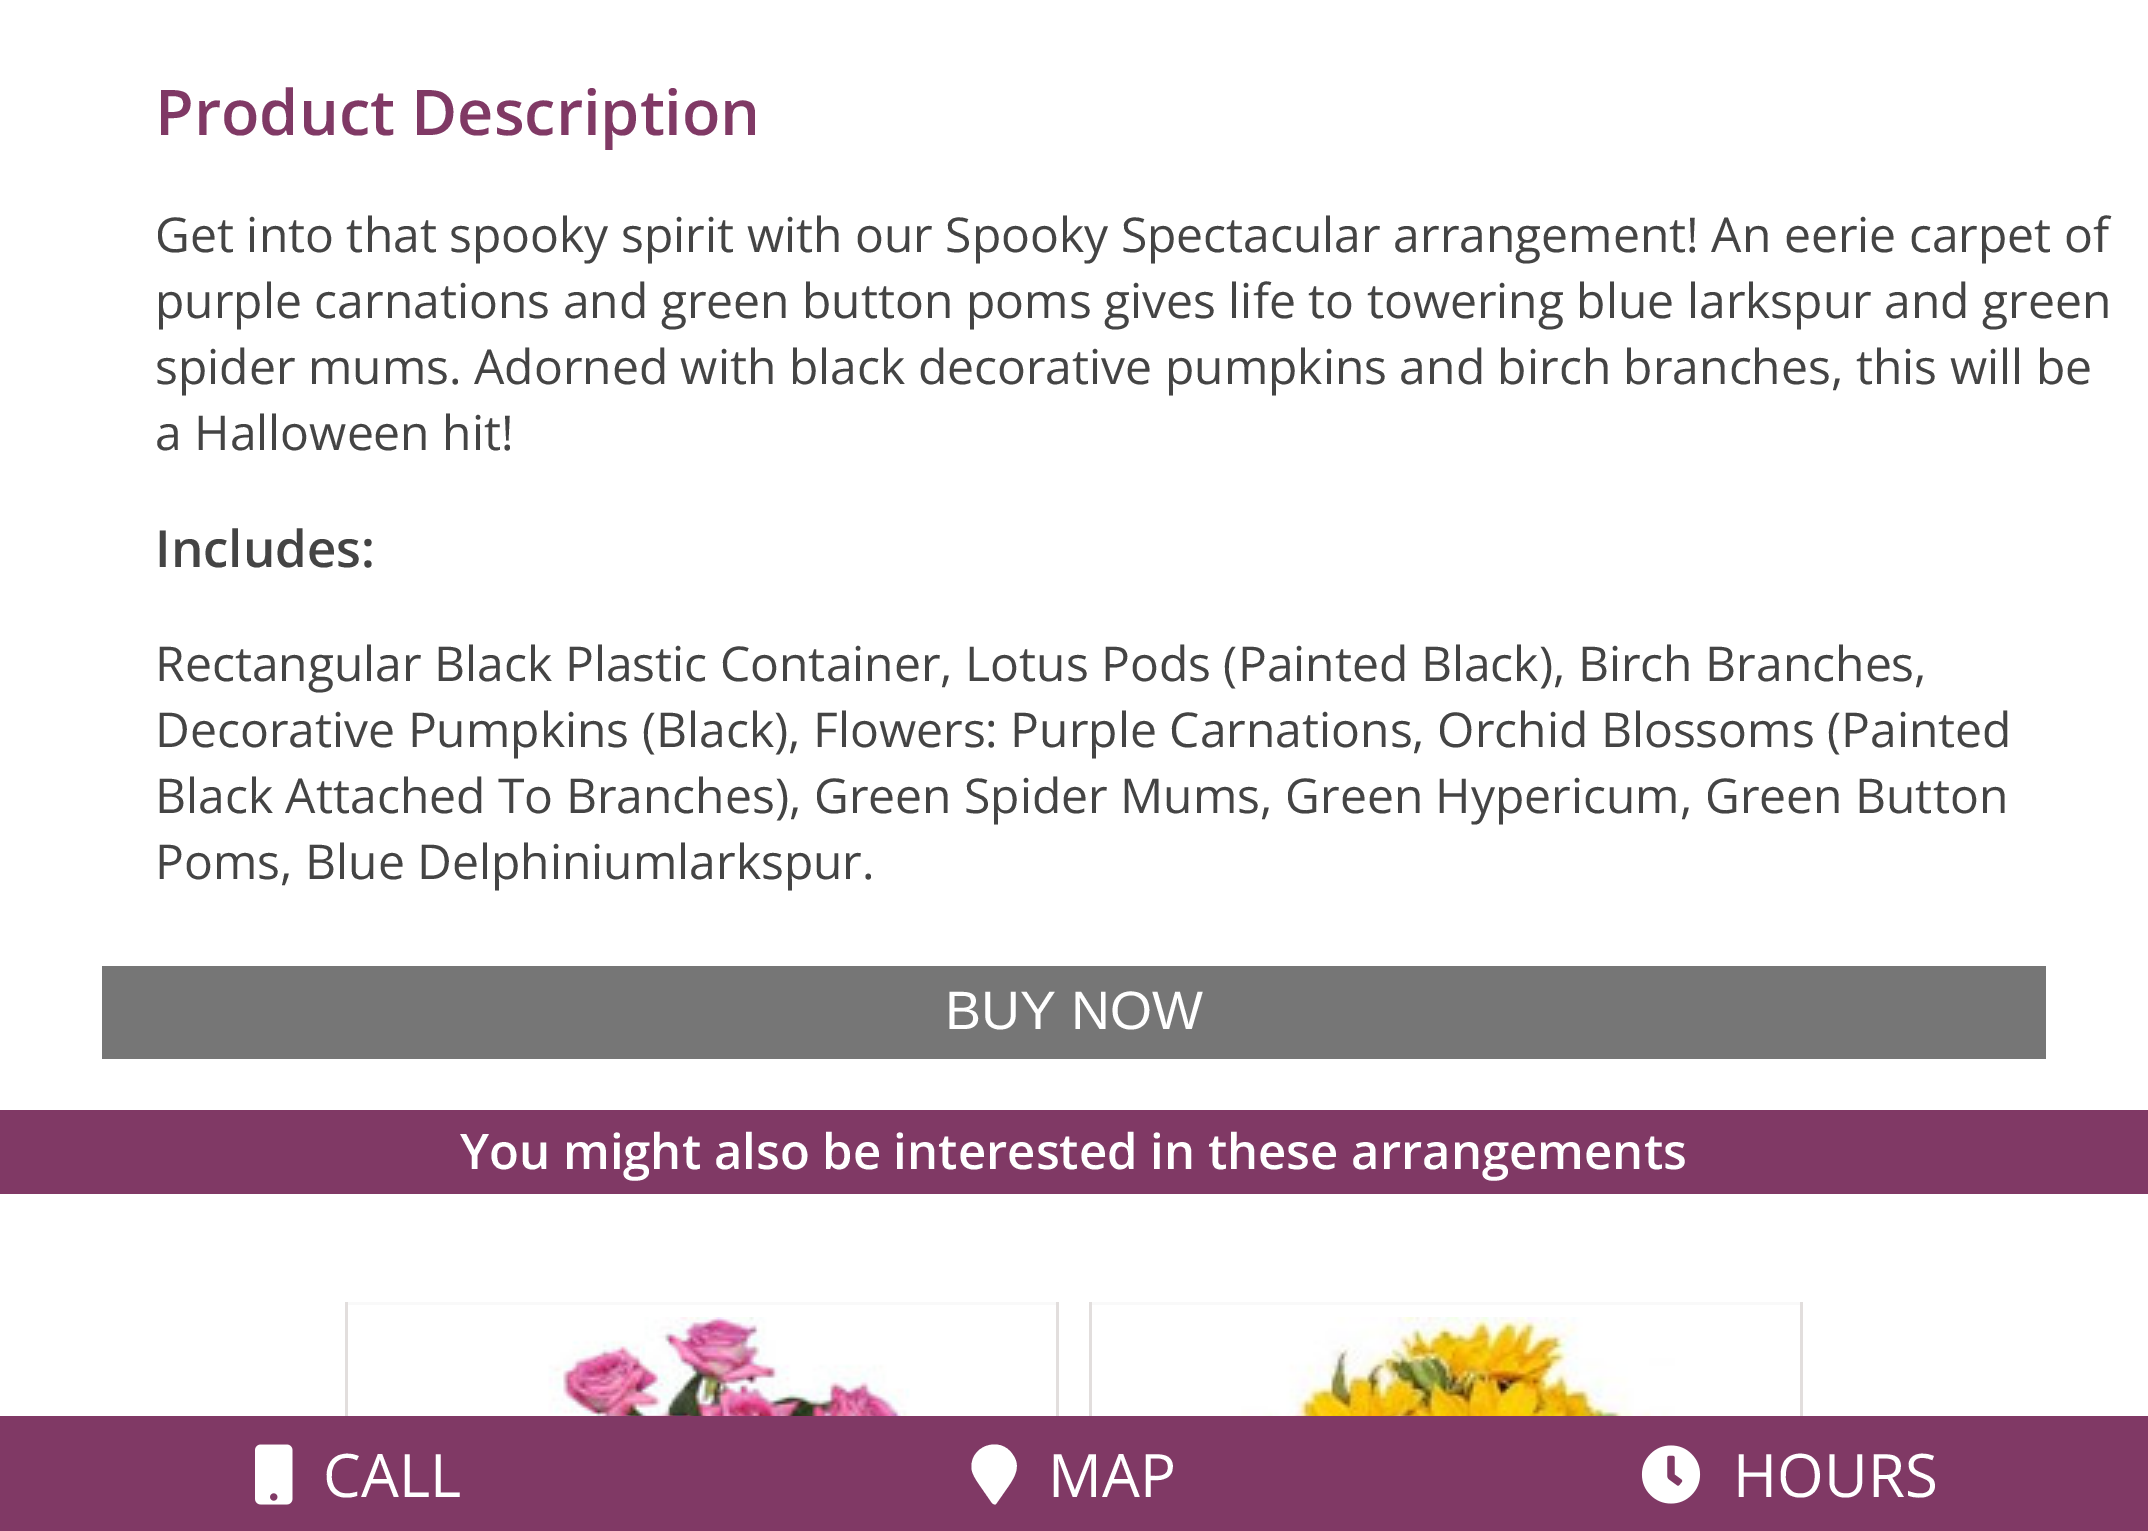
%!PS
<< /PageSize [2148 1531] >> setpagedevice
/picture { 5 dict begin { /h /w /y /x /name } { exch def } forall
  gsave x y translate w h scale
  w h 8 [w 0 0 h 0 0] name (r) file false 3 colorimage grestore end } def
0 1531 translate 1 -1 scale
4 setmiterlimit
1 setgray
0 0 2148 1531 rectfill
/OpenSans-SemiBold [63 0 0 -63 0 0] selectfont
0.502 0.224 0.396 setrgbcolor
155 135 moveto (Product Description) show
/OpenSans-Regular [48 0 0 -48 0 0] selectfont
0.267 setgray
155 252 moveto (Get into that spooky spirit with our Spooky Spectacular arrangement! An eerie carpet of) show
155 318 moveto (purple carnations and green button poms gives life to towering blue larkspur and green) show
155 384 moveto (spider mums. Adorned with black decorative pumpkins and birch branches, this will be) show
155 450 moveto (a Halloween hit!) show
/OpenSans-SemiBold [51 0 0 -51 0 0] selectfont
155 567 moveto (Includes:) show
/OpenSans-Regular [48 0 0 -48 0 0] selectfont
155 681 moveto (Rectangular Black Plastic Container, Lotus Pods \(Painted Black\), Birch Branches,) show
155 747 moveto (Decorative Pumpkins \(Black\), Flowers: Purple Carnations, Orchid Blossoms \(Painted) show
155 813 moveto (Black Attached To Branches\), Green Spider Mums, Green Hypericum, Green Button) show
155 879 moveto (Poms, Blue Delphiniumlarkspur.) show
0.463 setgray
102 966 1944 93 rectfill
/LiberationSans-Regular [54 0 0 -54 0 0] selectfont
1 setgray
945 1029 moveto (BUY NOW) show
0.502 0.224 0.396 setrgbcolor
0 1110 2148 84 rectfill
/OpenSans-SemiBold [49.1 0 0 -49.1 0 0] selectfont
1 setgray
460 1169 moveto -0.25 0 32 (You might also be interested in these arrangements) widthshow
0.976 setgray
345 1302 714 3 rectfill
0.886 0.871 0.867 setrgbcolor
1056 1302 3 114 rectfill
345 1302 3 114 rectfill
(img1.rgb) 453 1317 481 99 picture
0.976 setgray
1089 1302 714 3 rectfill
0.886 0.871 0.867 setrgbcolor
1800 1302 3 114 rectfill
1089 1302 3 114 rectfill
(img2.rgb) 1225 1317 450 99 picture
0.502 0.224 0.396 setrgbcolor
0 1416 2148 115 rectfill
(img3.rgb) 255 1444 38 61 picture
/OpenSans-Regular [60 0 0 -60 0 0] selectfont
1 setgray
323 1497 moveto (CALL) show
newpath 992 1503 moveto 983 1490 lineto 979 1484 974 1478 972 1471 curveto 967 1447 1000 1434 1013 1455 curveto 1023 1469 1011 1482 1003 1494 curveto 996 1504 lineto 995 1505 993 1504 992 1503 curveto closepath fill
1048 1497 moveto (MAP) show
(img4.rgb) 1641 1445 60 59 picture
1733 1497 moveto (HOURS) show
showpage
